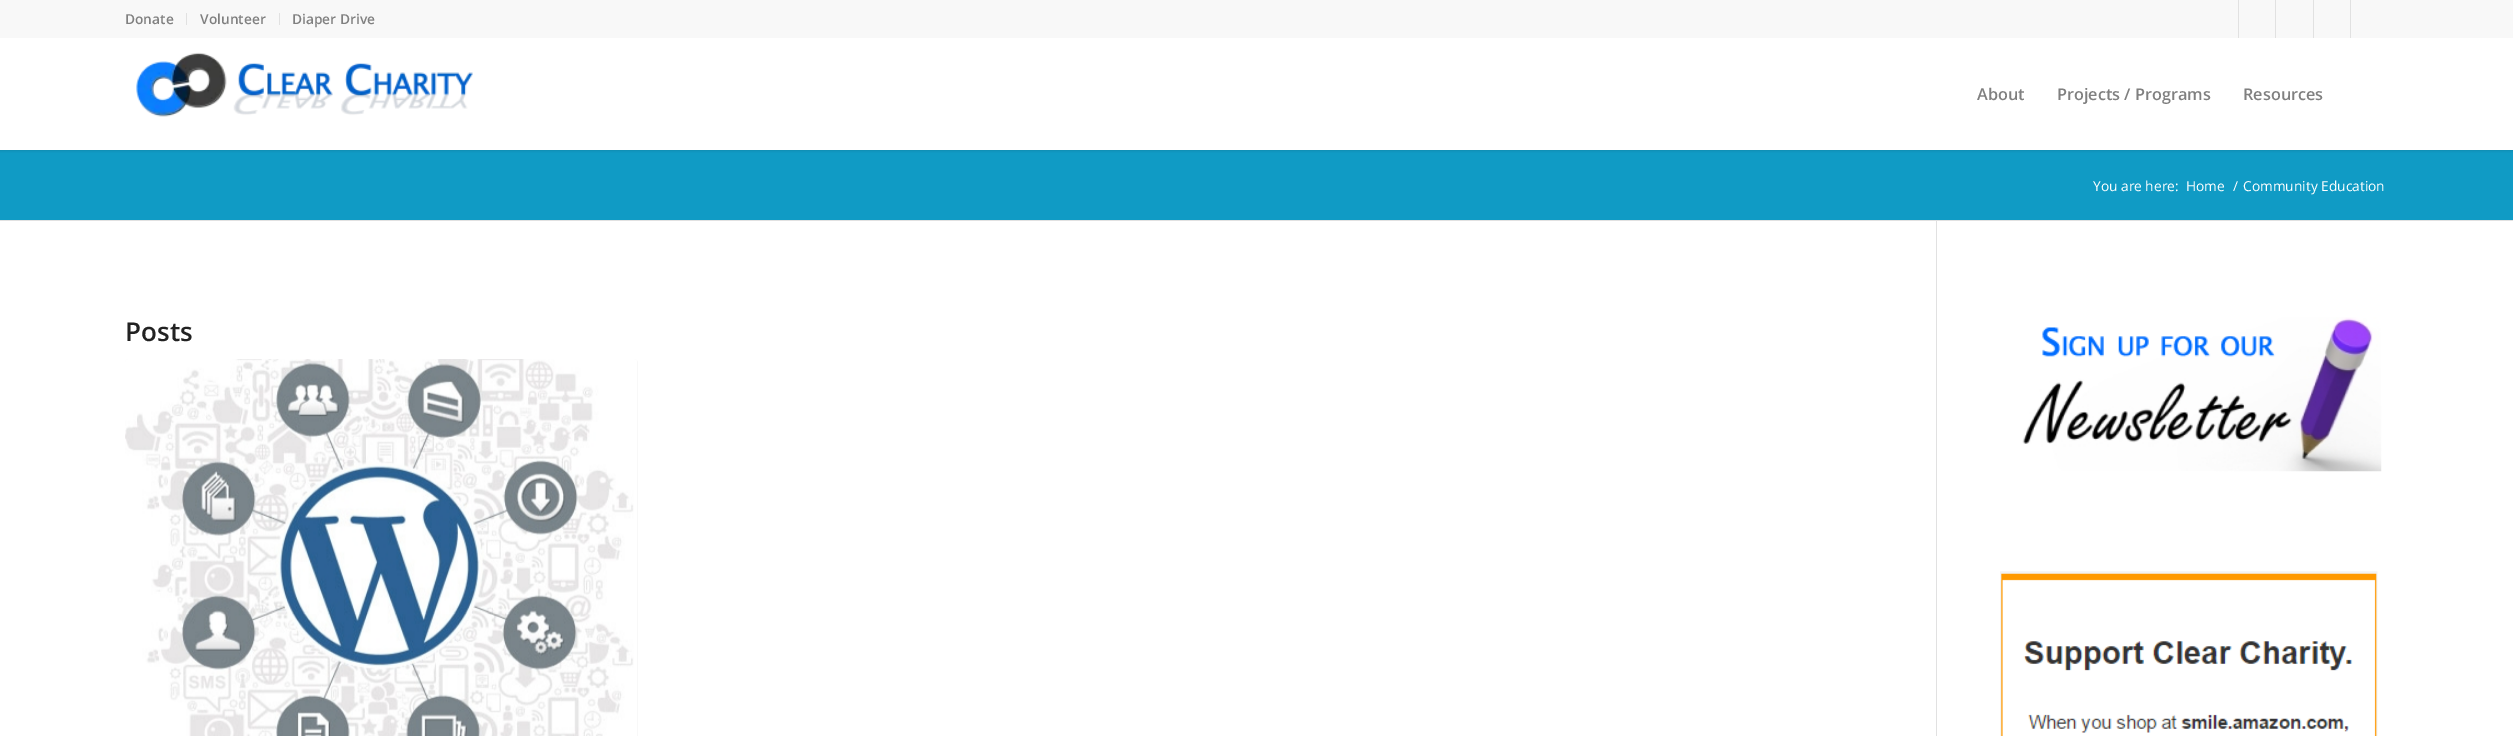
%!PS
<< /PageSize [2513 736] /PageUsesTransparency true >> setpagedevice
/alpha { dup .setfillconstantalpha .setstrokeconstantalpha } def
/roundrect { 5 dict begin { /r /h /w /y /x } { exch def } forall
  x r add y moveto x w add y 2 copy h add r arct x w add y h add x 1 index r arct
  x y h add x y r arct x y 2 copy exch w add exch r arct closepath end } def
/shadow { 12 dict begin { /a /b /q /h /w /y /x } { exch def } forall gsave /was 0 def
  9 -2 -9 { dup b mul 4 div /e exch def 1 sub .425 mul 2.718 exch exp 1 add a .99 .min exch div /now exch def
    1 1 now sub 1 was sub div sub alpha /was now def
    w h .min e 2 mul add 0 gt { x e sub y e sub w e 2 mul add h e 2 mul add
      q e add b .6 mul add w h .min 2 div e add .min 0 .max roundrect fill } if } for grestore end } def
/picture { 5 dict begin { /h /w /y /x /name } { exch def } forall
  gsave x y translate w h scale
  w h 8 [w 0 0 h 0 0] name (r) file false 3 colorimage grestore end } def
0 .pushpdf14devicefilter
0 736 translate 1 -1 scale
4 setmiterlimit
1 setgray
0 0 2513 736 rectfill
0.063 0.608 0.773 setrgbcolor
0 150 2513 70 rectfill
0 setgray
-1 -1 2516 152 0 1 0.1 shadow
0.973 setgray
0 0 2513 38 rectfill
0.882 setgray
186 13 1 12 rectfill
/OpenSans-SemiBold [13.75 0 0 -13.75 0 0] selectfont
0.502 setgray
125 24 moveto (Donate) show
0.882 setgray
279 13 1 12 rectfill
0.502 setgray
200 24 moveto (Volunteer) show
292 24 moveto (Diaper Drive) show
0.882 setgray
2238 0 1 38 rectfill
2275 0 1 38 rectfill
2313 0 1 38 rectfill
2350 0 1 38 rectfill
1 setgray
0 38 2513 112 rectfill
(img1.rgb) 136 52 337 65 picture
/OpenSans-SemiBold [16.25 0 0 -16.25 0 0] selectfont
0.502 setgray
1977 100 moveto (About) show
2057 100 moveto (Projects / Programs) show
2243 100 moveto (Resources) show
/OpenSans-Regular [13.75 0 0 -13.75 0 0] selectfont
1 setgray
2093 191 moveto (You are here:) show
2186 191 moveto (Home) show
2233 191 moveto (/) show
2243 191 moveto (Community Education) show
0.882 setgray
0 220 2513 1 rectfill
1936 221 1 515 rectfill
/OpenSans-SemiBold [26 0 0 -26 0 0] selectfont
0.133 setgray
125 341 moveto (Posts) show
0.973 setgray
125 359 513 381 4 roundrect fill
(img2.rgb) 125 359 512 377 picture
(img3.rgb) 2022 317 360 155 picture
(img4.rgb) 2000 571 378 165 picture
.poppdf14devicefilter showpage
